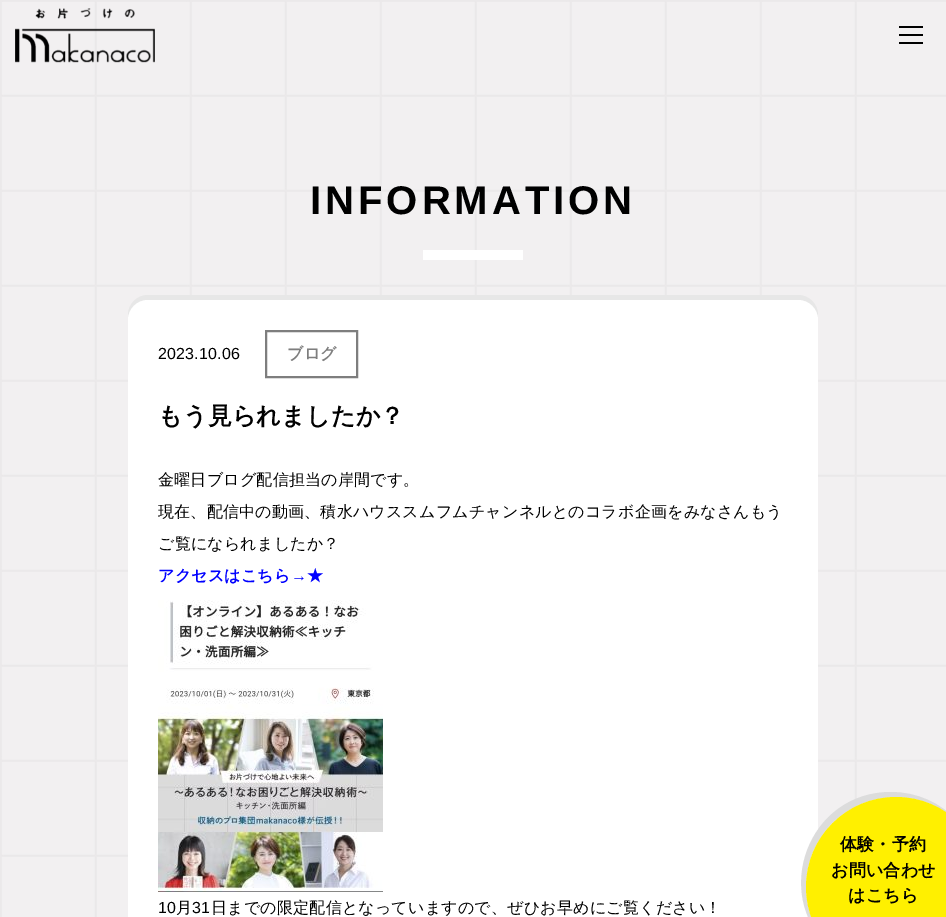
%!PS
<< /PageSize [946 917] >> setpagedevice
/roundrect { 5 dict begin { /r /h /w /y /x } { exch def } forall
  x r add y moveto x w add y 2 copy h add r arct x w add y h add x 1 index r arct
  x y h add x y r arct x y 2 copy exch w add exch r arct closepath end } def
/picture { 5 dict begin { /h /w /y /x /name } { exch def } forall
  gsave x y translate w h scale
  w h 8 [w 0 0 h 0 0] name (r) file false 3 colorimage grestore end } def
0 917 translate 1 -1 scale
4 setmiterlimit
1 setgray
0 0 946 917 rectfill
(img1.rgb) 0 0 946 917 picture
/LiberationSans-Bold [40 0 0 -40 0 0] selectfont
0 setgray
310 214 moveto 4 0 (INFORMATION) ashow
1 setgray
423 250 100 10 rectfill
0.906 setgray
newpath 148 295 moveto 137 295 128 304 128 315 curveto 128 320 lineto 128 309 137 300 148 300 curveto 798 300 lineto 809 300 818 309 818 320 curveto 818 315 lineto 818 304 809 295 798 295 curveto closepath fill
1 setgray
128 300 690 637 20 roundrect fill
/LiberationSans-Regular [16 0 0 -16 0 0] selectfont
0 setgray
158 359 moveto 0.2 0 (2023.10.06) ashow
0.494 setgray
2 setlinewidth
266 331 91 46 rectstroke
/WenQuanYiZenHei-Bold [16 0 0 -16 0 0] selectfont
287 359 moveto 0.2 0 (ブログ) ashow
/WenQuanYiZenHei-Bold [24 0 0 -24 0 0] selectfont
0 setgray
158 424 moveto 0.2 0 (もう見られましたか？) ashow
/WenQuanYiZenHei-Medium [16 0 0 -16 0 0] selectfont
158 485 moveto 0.2 0 (金曜日ブログ配信担当の岸間です。) ashow
158 517 moveto 0.2 0 (現在、配信中の動画、積水ハウススムフムチャンネルとのコラボ企画をみなさんもう) ashow
158 549 moveto 0.2 0 (ご覧になられましたか？) ashow
/WenQuanYiZenHei-Bold [16 0 0 -16 0 0] selectfont
0 0 1 setrgbcolor
158 581 moveto 0.2 0 (アクセスはこちら) ashow
/LiberationSans-Bold [16 0 0 -16 0 0] selectfont
291 581 moveto 0.2 0 (→) ashow
/WenQuanYiZenHei-Bold [16 0 0 -16 0 0] selectfont
307 581 moveto 0.2 0 (★) ashow
(img2.rgb) 158 600 225 292 picture
/LiberationSans-Regular [16 0 0 -16 0 0] selectfont
0 setgray
158 913 moveto 0.2 0 (10) ashow
/WenQuanYiZenHei-Medium [16 0 0 -16 0 0] selectfont
176 913 moveto 0.2 0 (月) ashow
/LiberationSans-Regular [16 0 0 -16 0 0] selectfont
192 913 moveto 0.2 0 (31) ashow
/WenQuanYiZenHei-Medium [16 0 0 -16 0 0] selectfont
211 913 moveto 0.2 0 (日までの限定配信となっていますので、ぜひお早めにご覧ください！) ashow
(img3.rgb) 15 8 140 55 picture
899 26 24 2 rectfill
899 34 24 2 rectfill
899 42 24 2 rectfill
0.863 setgray
newpath 891 792 moveto 808 792 771 894 830 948 curveto 797 913 798 858 832 823 curveto 867 789 922 788 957 821 curveto 941 803 917 792 891 792 curveto closepath fill
1 0.941 0 setrgbcolor
newpath 896 887 90 0 360 arc closepath fill
/WenQuanYiZenHei-Bold [17 0 0 -17 0 0] selectfont
0 setgray
840 850 moveto 0.2 0 (体験・予約) ashow
831 876 moveto 0.2 0 (お問い合わせ) ashow
848 901 moveto 0.2 0 (はこちら) ashow
showpage
